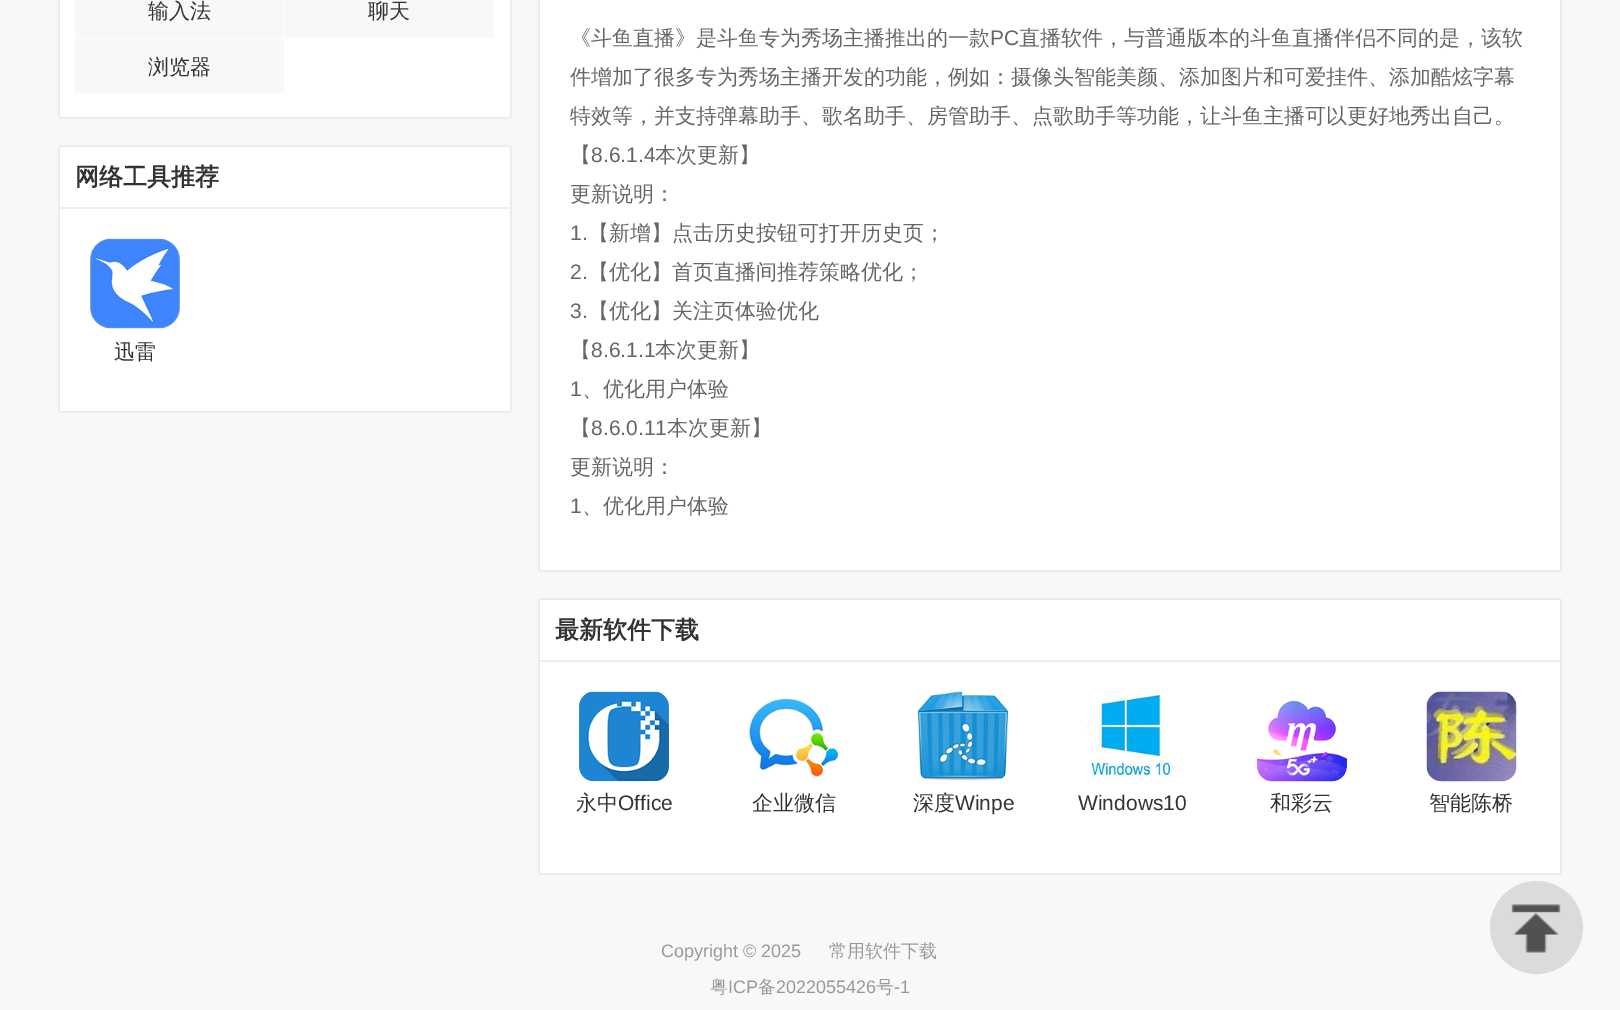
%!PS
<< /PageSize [1620 1010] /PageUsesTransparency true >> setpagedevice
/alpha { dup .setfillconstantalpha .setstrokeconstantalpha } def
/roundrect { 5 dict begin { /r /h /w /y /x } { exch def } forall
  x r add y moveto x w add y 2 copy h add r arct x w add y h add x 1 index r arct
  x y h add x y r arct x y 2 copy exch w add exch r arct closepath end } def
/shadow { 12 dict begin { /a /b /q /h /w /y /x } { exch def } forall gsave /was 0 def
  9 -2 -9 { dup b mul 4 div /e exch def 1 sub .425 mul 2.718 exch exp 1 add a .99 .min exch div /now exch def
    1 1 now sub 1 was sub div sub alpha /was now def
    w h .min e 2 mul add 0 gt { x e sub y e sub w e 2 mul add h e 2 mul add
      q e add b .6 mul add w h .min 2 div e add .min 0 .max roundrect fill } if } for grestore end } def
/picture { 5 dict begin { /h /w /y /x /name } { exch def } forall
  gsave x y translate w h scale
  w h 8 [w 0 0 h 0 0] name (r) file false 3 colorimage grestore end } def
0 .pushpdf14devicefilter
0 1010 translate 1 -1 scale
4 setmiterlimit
0.973 setgray
0 0 1620 1010 rectfill
0 setgray
60 -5 450 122 0 1.5 0.15 shadow
1 setgray
60 0 450 117 rectfill
0.973 setgray
75 0 209 38 rectfill
/WenQuanYiZenHei-Medium [21 0 0 -21 0 0] selectfont
0.2 setgray
148 18 moveto (输入法) show
0.973 setgray
285 0 209 38 rectfill
0.2 setgray
368 18 moveto (聊天) show
0.973 setgray
75 39 209 54 rectfill
0.2 setgray
148 74 moveto (浏览器) show
0 setgray
60 147 450 264 0 1.5 0.15 shadow
1 setgray
60 147 450 264 rectfill
0.933 setgray
60 207 450 2 rectfill
/WenQuanYiZenHei-Bold [24 0 0 -24 0 0] selectfont
0.2 setgray
75 185 moveto (网络工具推荐) show
(img1.rgb) 90 238 90 91 picture
/WenQuanYiZenHei-Medium [21 0 0 -21 0 0] selectfont
114 359 moveto (迅雷) show
0 setgray
540 -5 1020 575 0 1.5 0.15 shadow
1 setgray
540 0 1020 570 rectfill
0.4 setgray
570 45 moveto (《斗鱼直播》是斗鱼专为秀场主播推出的一款) show
/LiberationSans-Regular [21 0 0 -21 0 0] selectfont
990 45 moveto (PC) show
/WenQuanYiZenHei-Medium [21 0 0 -21 0 0] selectfont
1019 45 moveto (直播软件，与普通版本的斗鱼直播伴侣不同的是，该软) show
570 84 moveto (件增加了很多专为秀场主播开发的功能，例如：摄像头智能美颜、添加图片和可爱挂件、添加酷炫字幕) show
570 123 moveto (特效等，并支持弹幕助手、歌名助手、房管助手、点歌助手等功能，让斗鱼主播可以更好地秀出自己。) show
570 162 moveto (【) show
/LiberationSans-Regular [21 0 0 -21 0 0] selectfont
591 162 moveto (8.6.1.4) show
/WenQuanYiZenHei-Medium [21 0 0 -21 0 0] selectfont
655 162 moveto (本次更新】) show
570 201 moveto (更新说明：) show
/LiberationSans-Regular [21 0 0 -21 0 0] selectfont
570 240 moveto (1.) show
/WenQuanYiZenHei-Medium [21 0 0 -21 0 0] selectfont
588 240 moveto (【新增】点击历史按钮可打开历史页；) show
/LiberationSans-Regular [21 0 0 -21 0 0] selectfont
570 279 moveto (2.) show
/WenQuanYiZenHei-Medium [21 0 0 -21 0 0] selectfont
588 279 moveto (【优化】首页直播间推荐策略优化；) show
/LiberationSans-Regular [21 0 0 -21 0 0] selectfont
570 318 moveto (3.) show
/WenQuanYiZenHei-Medium [21 0 0 -21 0 0] selectfont
588 318 moveto (【优化】关注页体验优化) show
570 357 moveto (【) show
/LiberationSans-Regular [21 0 0 -21 0 0] selectfont
591 357 moveto (8.6.1.1) show
/WenQuanYiZenHei-Medium [21 0 0 -21 0 0] selectfont
655 357 moveto (本次更新】) show
/LiberationSans-Regular [21 0 0 -21 0 0] selectfont
570 396 moveto (1) show
/WenQuanYiZenHei-Medium [21 0 0 -21 0 0] selectfont
582 396 moveto (、优化用户体验) show
570 435 moveto (【) show
/LiberationSans-Regular [21 0 0 -21 0 0] selectfont
591 435 moveto (8.6.0.11) show
/WenQuanYiZenHei-Medium [21 0 0 -21 0 0] selectfont
667 435 moveto (本次更新】) show
570 474 moveto (更新说明：) show
/LiberationSans-Regular [21 0 0 -21 0 0] selectfont
570 513 moveto (1) show
/WenQuanYiZenHei-Medium [21 0 0 -21 0 0] selectfont
582 513 moveto (、优化用户体验) show
0 setgray
540 600 1020 273 0 1.5 0.15 shadow
1 setgray
540 600 1020 273 rectfill
0.933 setgray
540 660 1020 2 rectfill
/WenQuanYiZenHei-Bold [24 0 0 -24 0 0] selectfont
0.2 setgray
555 638 moveto (最新软件下载) show
(img2.rgb) 579 691 90 91 picture
/WenQuanYiZenHei-Medium [21 0 0 -21 0 0] selectfont
576 810 moveto (永中) show
/LiberationSans-Regular [21 0 0 -21 0 0] selectfont
618 810 moveto (Office) show
(img3.rgb) 749 698 90 79 picture
/WenQuanYiZenHei-Medium [21 0 0 -21 0 0] selectfont
752 810 moveto (企业微信) show
(img4.rgb) 918 691 90 90 picture
913 810 moveto (深度) show
/LiberationSans-Regular [21 0 0 -21 0 0] selectfont
955 810 moveto (Winpe) show
(img5.rgb) 1087 692 88 87 picture
1078 810 moveto (Windows10) show
(img6.rgb) 1257 700 90 82 picture
/WenQuanYiZenHei-Medium [21 0 0 -21 0 0] selectfont
1270 810 moveto (和彩云) show
(img7.rgb) 1426 691 91 91 picture
1429 810 moveto (智能陈桥) show
/LiberationSans-Regular [18 0 0 -18 0 0] selectfont
0.6 setgray
661 957 moveto (Copyright © 2025) show
/WenQuanYiZenHei-Medium [18 0 0 -18 0 0] selectfont
829 957 moveto (常用软件下载) show
710 993 moveto (粤) show
/LiberationSans-Regular [18 0 0 -18 0 0] selectfont
728 993 moveto (ICP) show
/WenQuanYiZenHei-Medium [18 0 0 -18 0 0] selectfont
758 993 moveto (备) show
/LiberationSans-Regular [18 0 0 -18 0 0] selectfont
776 993 moveto (2022055426) show
/WenQuanYiZenHei-Medium [18 0 0 -18 0 0] selectfont
876 993 moveto (号) show
/LiberationSans-Regular [18 0 0 -18 0 0] selectfont
894 993 moveto (-1) show
0.859 setgray
newpath 1536.5 927.5 45.5 0 360 arc closepath gsave fill grestore
2 setlinewidth
stroke
(img8.rgb) 1511 904 50 49 picture
.poppdf14devicefilter showpage
